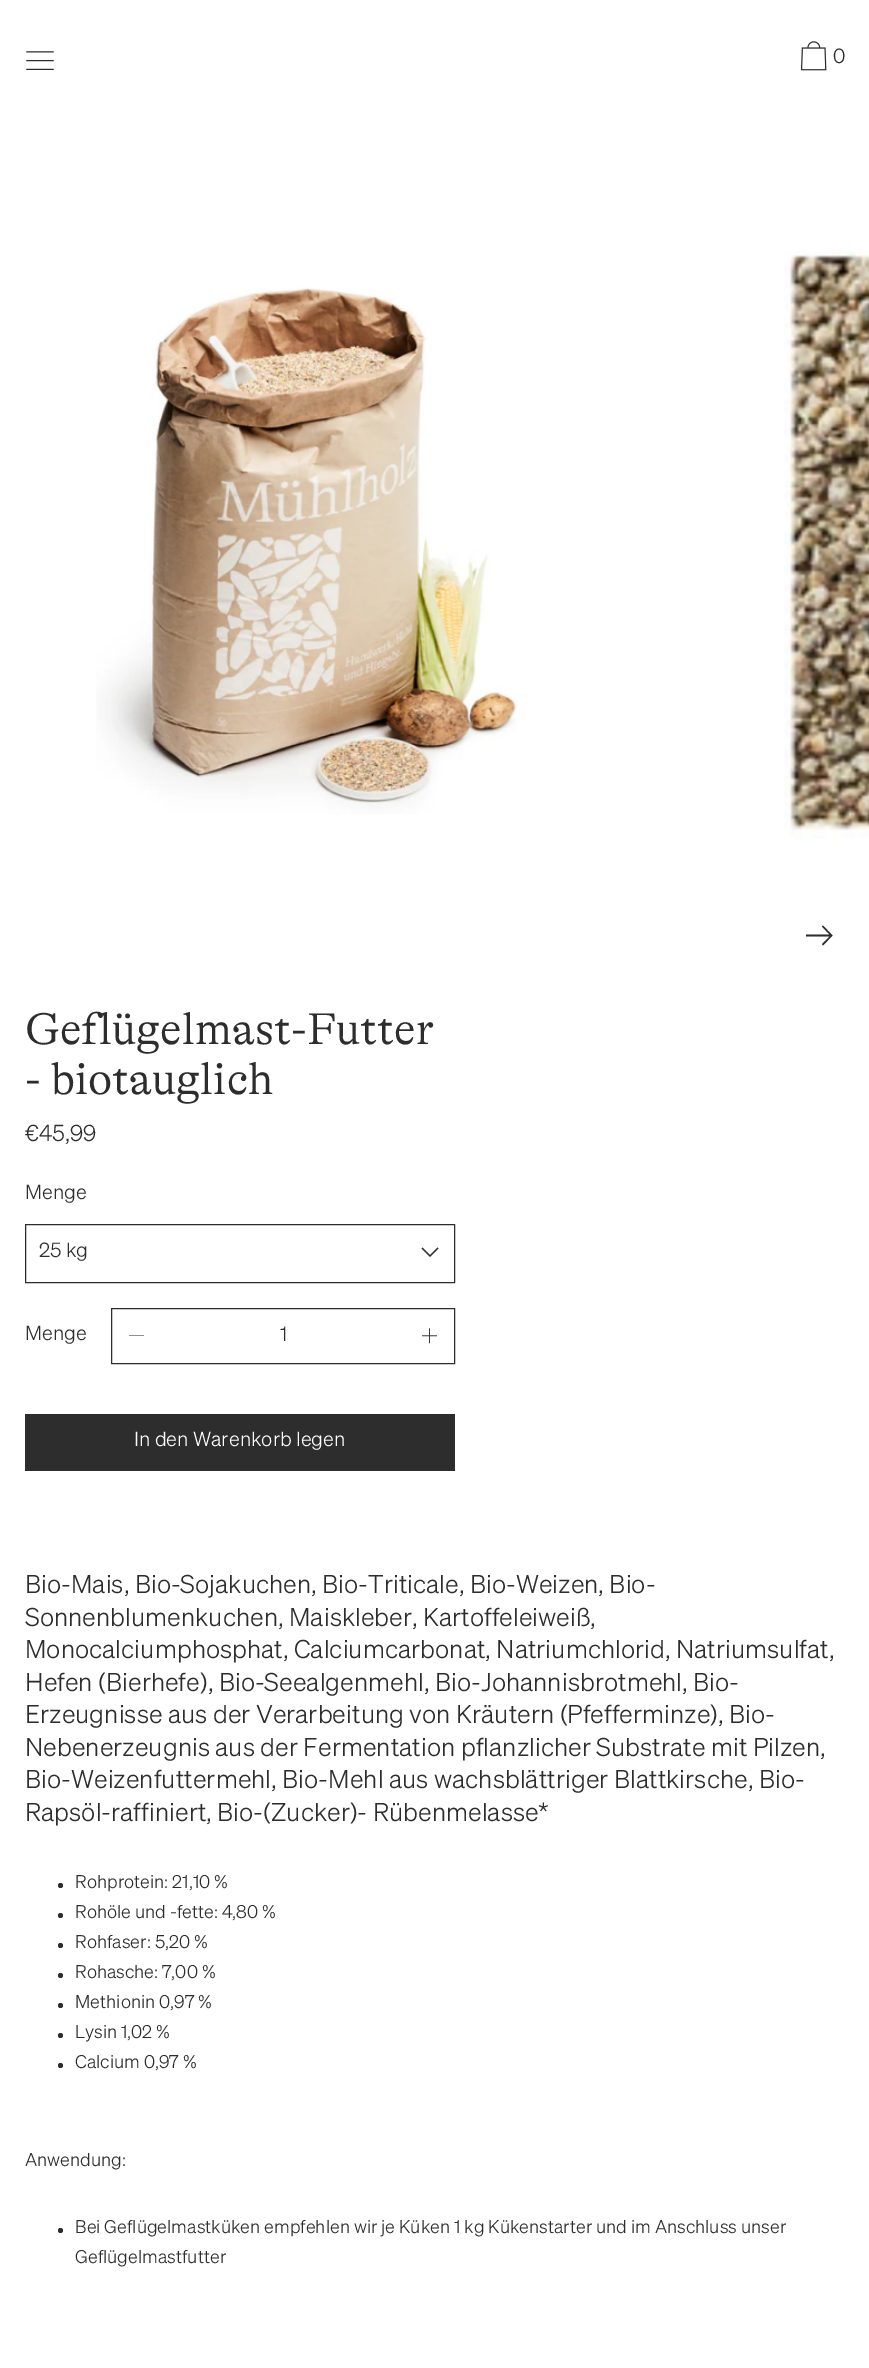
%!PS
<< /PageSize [869 2368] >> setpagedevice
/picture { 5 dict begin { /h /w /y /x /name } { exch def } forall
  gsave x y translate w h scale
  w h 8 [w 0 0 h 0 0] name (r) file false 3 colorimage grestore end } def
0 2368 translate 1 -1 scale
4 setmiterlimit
1 setgray
0 0 869 2368 rectfill
(img1.rgb) 26 51 28 19 picture
(img2.rgb) 800 41 27 30 picture
/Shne-Light [20 0 0 -20 0 0] selectfont
0.176 setgray
833 63 moveto (0) show
(img3.rgb) 96 287 421 527 picture
(img4.rgb) 784 249 85 590 picture
newpath 823 925.5 moveto 832.5 935.5 lineto 823 945.5 lineto 822 944 lineto 829.5 936.5 lineto 806 936.5 lineto 806 934.5 lineto 829.5 934.5 lineto 822 926.5 lineto closepath fill
/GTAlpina-Light [45 0 0 -45 0 0] selectfont
25 1044 moveto (Geflügelmast-Futter) show
25 1094 moveto (- biotauglich) show
/Shne-Light [22.5 0 0 -22.5 0 0] selectfont
25 1141 moveto (€45,99) show
/Shne-Light [20 0 0 -20 0 0] selectfont
25 1199 moveto (Menge) show
newpath 430 1255 moveto 437.5 1247.5 lineto 438.5 1248.5 lineto 430 1257 lineto 421.5 1248.5 lineto 422.5 1247.5 lineto closepath eofill
25.5 1224.5 429 58 rectstroke
39 1257 moveto (25 kg) show
25 1340 moveto (Menge) show
111.5 1308.5 343 55 rectstroke
newpath 129 1336 moveto 129 1335.5 lineto 144 1335.5 lineto 144 1336 lineto closepath fill
280 1341 moveto (1) show
(img5.rgb) 422 1328 15 16 picture
25 1414 430 57 rectfill
1 setgray
134 1446 moveto (In den Warenkorb legen) show
/Shne-Light [25.2 0 0 -25.2 0 0] selectfont
0.176 setgray
25 1593 moveto (Bio-Mais, Bio-Sojakuchen, Bio-Triticale, Bio-Weizen, Bio-) show
25 1626 moveto (Sonnenblumenkuchen, Maiskleber, Kartoffeleiweiß,) show
25 1658 moveto (Monocalciumphosphat, Calciumcarbonat, Natriumchlorid, Natriumsulfat,) show
25 1691 moveto (Hefen \(Bierhefe\), Bio-Seealgenmehl, Bio-Johannisbrotmehl, Bio-) show
25 1723 moveto (Erzeugnisse aus der Verarbeitung von Kräutern \(Pfefferminze\), Bio-) show
25 1756 moveto (Nebenerzeugnis aus der Fermentation pflanzlicher Substrate mit Pilzen,) show
25 1788 moveto (Bio-Weizenfuttermehl, Bio-Mehl aus wachsblättriger Blattkirsche, Bio-) show
25 1821 moveto (Rapsöl-raffiniert, Bio-\(Zucker\)- Rübenmelasse*) show
newpath 60.5 1885.5 2.5 0 360 arc closepath fill
/Shne-Light [18 0 0 -18 0 0] selectfont
75 1888 moveto (Rohprotein: 21,10 %) show
newpath 60.5 1915.5 2.5 0 360 arc closepath fill
75 1918 moveto (Rohöle und -fette: 4,80 %) show
newpath 60.5 1945.5 2.5 0 360 arc closepath fill
75 1948 moveto (Rohfaser: 5,20 %) show
newpath 60.5 1975.5 2.5 0 360 arc closepath fill
75 1978 moveto (Rohasche: 7,00 %) show
newpath 60.5 2005.5 2.5 0 360 arc closepath fill
75 2008 moveto (Methionin 0,97 %) show
newpath 60.5 2035.5 2.5 0 360 arc closepath fill
75 2038 moveto (Lysin 1,02 %) show
newpath 60.5 2065.5 2.5 0 360 arc closepath fill
75 2068 moveto (Calcium 0,97 %) show
25 2166 moveto (Anwendung:) show
newpath 60.5 2230.5 2.5 0 360 arc closepath fill
75 2233 moveto (Bei Geflügelmastküken empfehlen wir je Küken 1 kg Kükenstarter und im Anschluss unser) show
75 2263 moveto (Geflügelmastfutter) show
showpage
